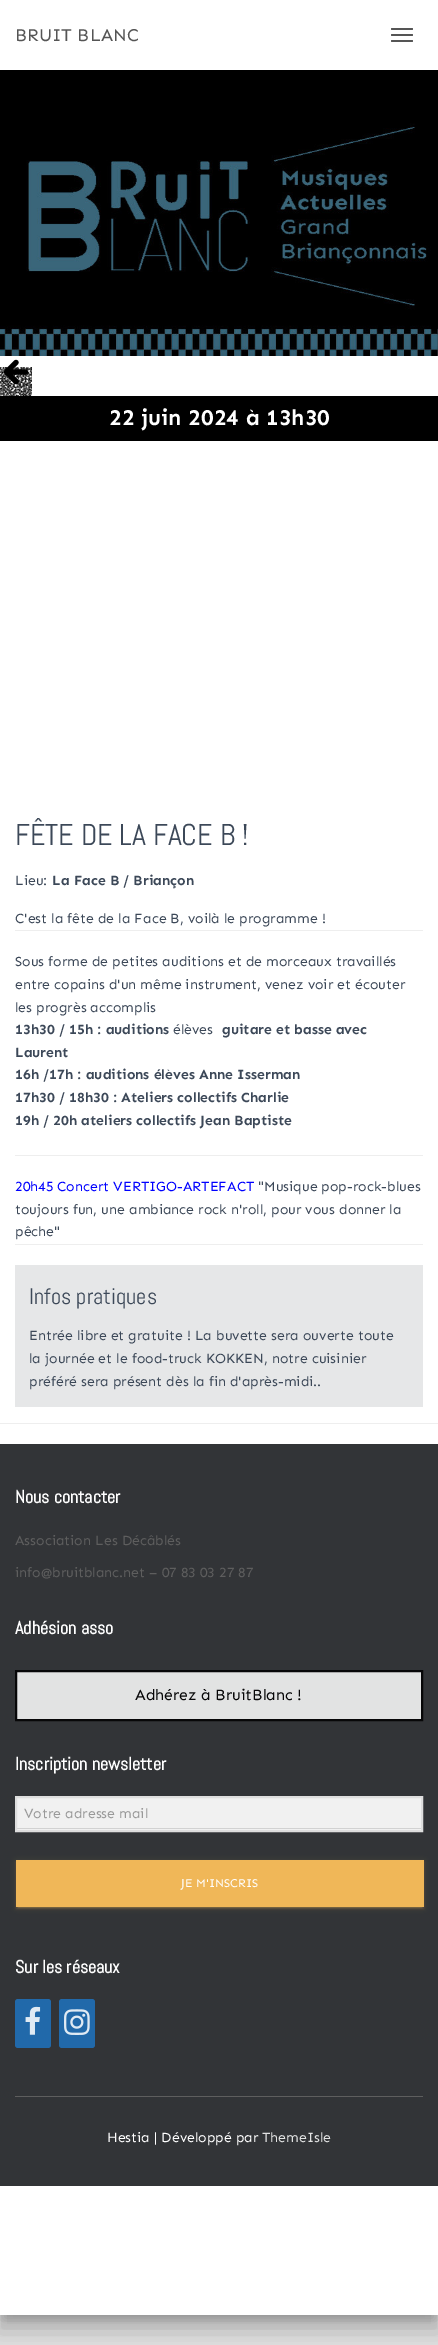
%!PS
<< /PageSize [438 2345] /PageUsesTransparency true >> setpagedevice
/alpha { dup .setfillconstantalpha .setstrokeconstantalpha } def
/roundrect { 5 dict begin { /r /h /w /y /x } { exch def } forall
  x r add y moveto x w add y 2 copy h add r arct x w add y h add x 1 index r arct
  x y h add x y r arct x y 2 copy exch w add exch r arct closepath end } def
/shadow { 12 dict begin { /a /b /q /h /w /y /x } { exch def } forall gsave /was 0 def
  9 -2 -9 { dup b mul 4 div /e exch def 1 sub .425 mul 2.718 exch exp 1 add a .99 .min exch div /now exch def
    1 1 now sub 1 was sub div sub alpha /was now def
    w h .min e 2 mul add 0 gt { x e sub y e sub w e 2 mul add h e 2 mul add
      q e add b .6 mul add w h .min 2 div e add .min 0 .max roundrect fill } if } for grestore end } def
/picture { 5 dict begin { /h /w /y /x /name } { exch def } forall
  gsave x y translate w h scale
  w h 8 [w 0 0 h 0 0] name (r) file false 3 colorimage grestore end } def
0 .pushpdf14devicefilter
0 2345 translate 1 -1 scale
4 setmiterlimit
0.898 setgray
0 0 438 2345 rectfill
1 setgray
0 0 438 70 rectfill
/sen-Regular [18 0 0 -18 0 0] selectfont
0.333 setgray
15 41 moveto (BRUIT BLANC) show
391 28 22 2 1 roundrect fill
391 34 22 2 1 roundrect fill
391 40 22 2 1 roundrect fill
(img1.rgb) 0 70 438 286 picture
0 setgray
5 369 428 1949 0 5 0.2 shadow
-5 357 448 1969 0 15 0.12 shadow
-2 370 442 1963 0 12 0.14 shadow
1 setgray
0 356 438 1959 rectfill
(img2.rgb) 0 367 32 29 picture
0 setgray
5.3 setlinewidth
1 setlinecap
1 setlinejoin
newpath 25.5 372 moveto 6.5 372 lineto 16 381.5 moveto 6.5 372 lineto 16 362.5 lineto stroke
0 396 438 45 rectfill
/sen-Bold [22.5 0 0 -22.5 0 0] selectfont
1 setgray
109 425 moveto (22 juin 2024 à 13h30) show
/Abel-Regular [30 0 0 -30 0 0] selectfont
0.235 0.282 0.345 setrgbcolor
15 845 moveto (FÊTE DE LA FACE B !) show
/sen-Regular [14 0 0 -14 0 0] selectfont
15 885 moveto (Lieu:) show
/sen-Bold [14 0 0 -14 0 0] selectfont
52 885 moveto (La Face B / Briançon) show
/sen-Regular [14 0 0 -14 0 0] selectfont
15 923 moveto (C'est la fête de la Face B, voilà le programme !) show
0.933 setgray
15 930 408 1 rectfill
0.235 0.282 0.345 setrgbcolor
15 966 moveto (Sous forme de petites auditions et de morceaux travaillés) show
15 989 moveto (entre copains d'un même instrument, venez voir et écouter) show
15 1012 moveto (les progrès accomplis) show
/sen-Bold [14 0 0 -14 0 0] selectfont
15 1034 moveto (13h30 / 15h : auditions) show
/sen-Regular [14 0 0 -14 0 0] selectfont
173 1034 moveto (élèves) show
/sen-Bold [14 0 0 -14 0 0] selectfont
222 1034 moveto (guitare et basse avec) show
15 1057 moveto (Laurent) show
15 1079 moveto (16h /17h : auditions élèves Anne Isserman) show
15 1102 moveto (17h30 / 18h30 : Ateliers collectifs Charlie) show
15 1125 moveto (19h / 20h ateliers collectifs Jean Baptiste) show
0.933 setgray
15 1155 408 1 rectfill
/sen-Regular [14 0 0 -14 0 0] selectfont
0 0 1 setrgbcolor
15 1191 moveto (20h45 Concert VERTIGO-ARTEFACT) show
0.235 0.282 0.345 setrgbcolor
258 1191 moveto ("Musique pop-rock-blues) show
15 1214 moveto (toujours fun, une ambiance rock n'roll, pour vous donner la) show
15 1236 moveto (pêche") show
0.933 setgray
15 1244 408 1 rectfill
0.902 0.906 0.91 setrgbcolor
15 1265 408 142 rectfill
/Abel-Regular [22.5 0 0 -22.5 0 0] selectfont
0.235 0.282 0.345 setrgbcolor
29 1304 moveto (Infos pratiques) show
/sen-Regular [14 0 0 -14 0 0] selectfont
29 1340 moveto (Entrée libre et gratuite ! La buvette sera ouverte toute) show
29 1363 moveto (la journée et le food-truck KOKKEN, notre cuisinier) show
29 1386 moveto (préféré sera présent dès la fin d'après-midi..) show
0.933 setgray
0 1423 438 1 rectfill
0.196 0.204 0.216 setrgbcolor
0 1444 438 742 rectfill
/Abel-Bold [18 0 0 -18 0 0] selectfont
1 setgray
15 1503 moveto (Nous contacter) show
/sen-Regular [14 0 0 -14 0 0] selectfont
0.369 setgray
15 1545 moveto (Association Les Décâblés) show
15 1577 moveto (info@bruitblanc.net – 07 83 03 27 87) show
/Abel-Bold [18 0 0 -18 0 0] selectfont
1 setgray
15 1634 moveto (Adhésion asso) show
0.886 0.89 0.89 setrgbcolor
newpath 16 1671 moveto 422 1671 lineto 422 1720 lineto 16 1720 lineto closepath gsave fill grestore
0.027 0.027 0.031 setrgbcolor
2 setlinewidth
0 setlinecap
0 setlinejoin
stroke
/sen-Regular [15.75 0 0 -15.75 0 0] selectfont
135 1700 moveto (Adhérez à BruitBlanc !) show
/Abel-Bold [18 0 0 -18 0 0] selectfont
1 setgray
15 1770 moveto (Inscription newsletter) show
0.945 setgray
17 1798 404 32 rectfill
0.824 setgray
17 1828 404 1 rectfill
0.871 setgray
16 1797 406 34 rectstroke
/sen-Regular [14 0 0 -14 0 0] selectfont
0.6 setgray
24 1818 moveto (Votre adresse mail) show
0.941 0.718 0.345 setrgbcolor
16 1861 408 47 0 2.5 0.12 shadow
18 1865 404 43 0 0.5 0.2 shadow
16 1862 408 47 0 1 0.14 shadow
16 1860 408 47 rectfill
/sen-Regular [12 0 0 -12 0 0] selectfont
1 setgray
181 1887 moveto (JE M'INSCRIS) show
/Abel-Bold [18 0 0 -18 0 0] selectfont
15 1973 moveto (Sur les réseaux) show
0.129 0.412 0.667 setrgbcolor
15 1999 36 49 3 roundrect fill
(img3.rgb) 25 2006 16 29 picture
59 1999 36 49 3 roundrect fill
(img4.rgb) 64 2009 26 26 picture
0.369 setgray
15 2096 408 1 rectfill
/sen-Regular [14 0 0 -14 0 0] selectfont
1 setgray
107 2142 moveto (Hestia | Développé par) show
0.886 0.89 0.89 setrgbcolor
262 2142 moveto (ThemeIsle) show
.poppdf14devicefilter showpage
